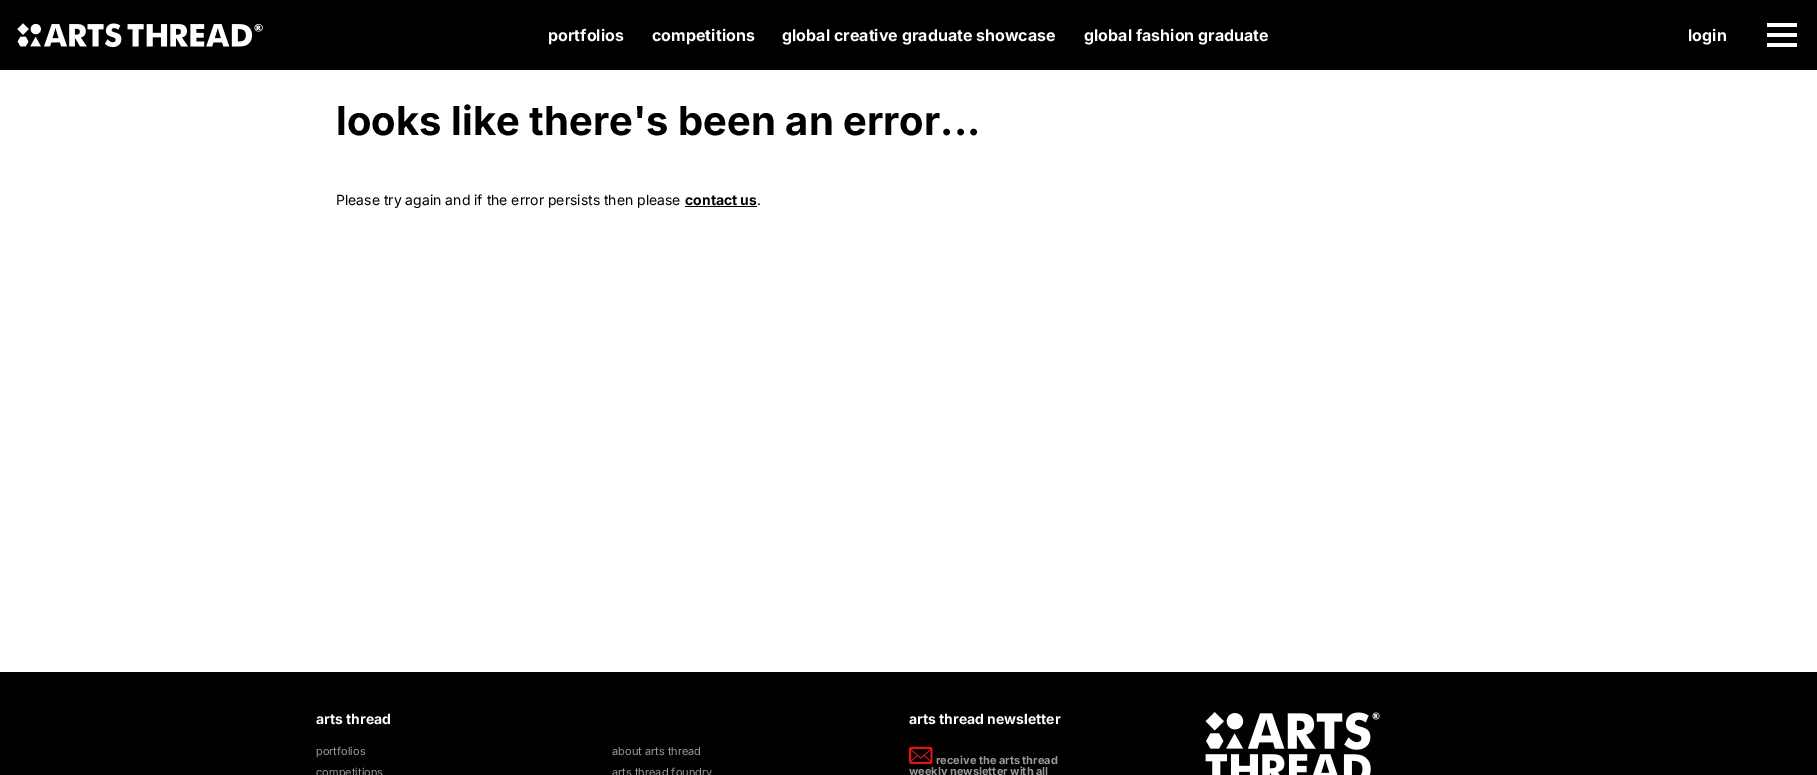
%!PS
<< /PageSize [1817 775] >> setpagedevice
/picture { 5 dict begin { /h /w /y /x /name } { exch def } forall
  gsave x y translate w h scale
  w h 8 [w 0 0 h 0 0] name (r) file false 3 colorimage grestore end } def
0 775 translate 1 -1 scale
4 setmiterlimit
0 setgray
0 0 1817 775 rectfill
(img1.rgb) 17 23 246 25 picture
/Inter-Bold [16 0 0 -16 0 0] selectfont
1 setgray
548 41 moveto (portfolios) show
652 41 moveto (competitions) show
782 41 moveto (global creative graduate showcase) show
1084 41 moveto (global fashion graduate) show
1688 41 moveto (login) show
1767 33 30 4 rectfill
1767 23 30 4 rectfill
1767 43 30 4 rectfill
0 70 1817 602 rectfill
/Inter-Bold [40 0 0 -40 0 0] selectfont
0 setgray
336 135 moveto (looks like there's been an error...) show
/Inter-Regular [14 0 0 -14 0 0] selectfont
336 205 moveto (Please try again and if the error persists then please) show
/Inter-Bold [14 0 0 -14 0 0] selectfont
685 205 moveto (contact us) show
685 206 72 1 rectfill
/Inter-Regular [14 0 0 -14 0 0] selectfont
757 205 moveto (.) show
0.012 0 0 setrgbcolor
0 672 1817 103 rectfill
/Inter-Bold [14 0 0 -14 0 0] selectfont
1 setgray
316 724 moveto (arts thread) show
/Inter-Regular [11 0 0 -11 0 0] selectfont
0.6 setgray
316 755 moveto (portfolios) show
316 776 moveto (competitions) show
612 755 moveto (about arts thread) show
612 776 moveto (arts thread foundry) show
/Inter-Bold [14 0 0 -14 0 0] selectfont
1 setgray
909 724 moveto (arts thread newsletter) show
(img2.rgb) 909 746 24 18 picture
/Inter-Bold [11 0 0 -11 0 0] selectfont
0.6 setgray
936 764 moveto (receive the arts thread) show
909 775 moveto (weekly newsletter with all) show
(img3.rgb) 1205 712 175 63 picture
showpage
